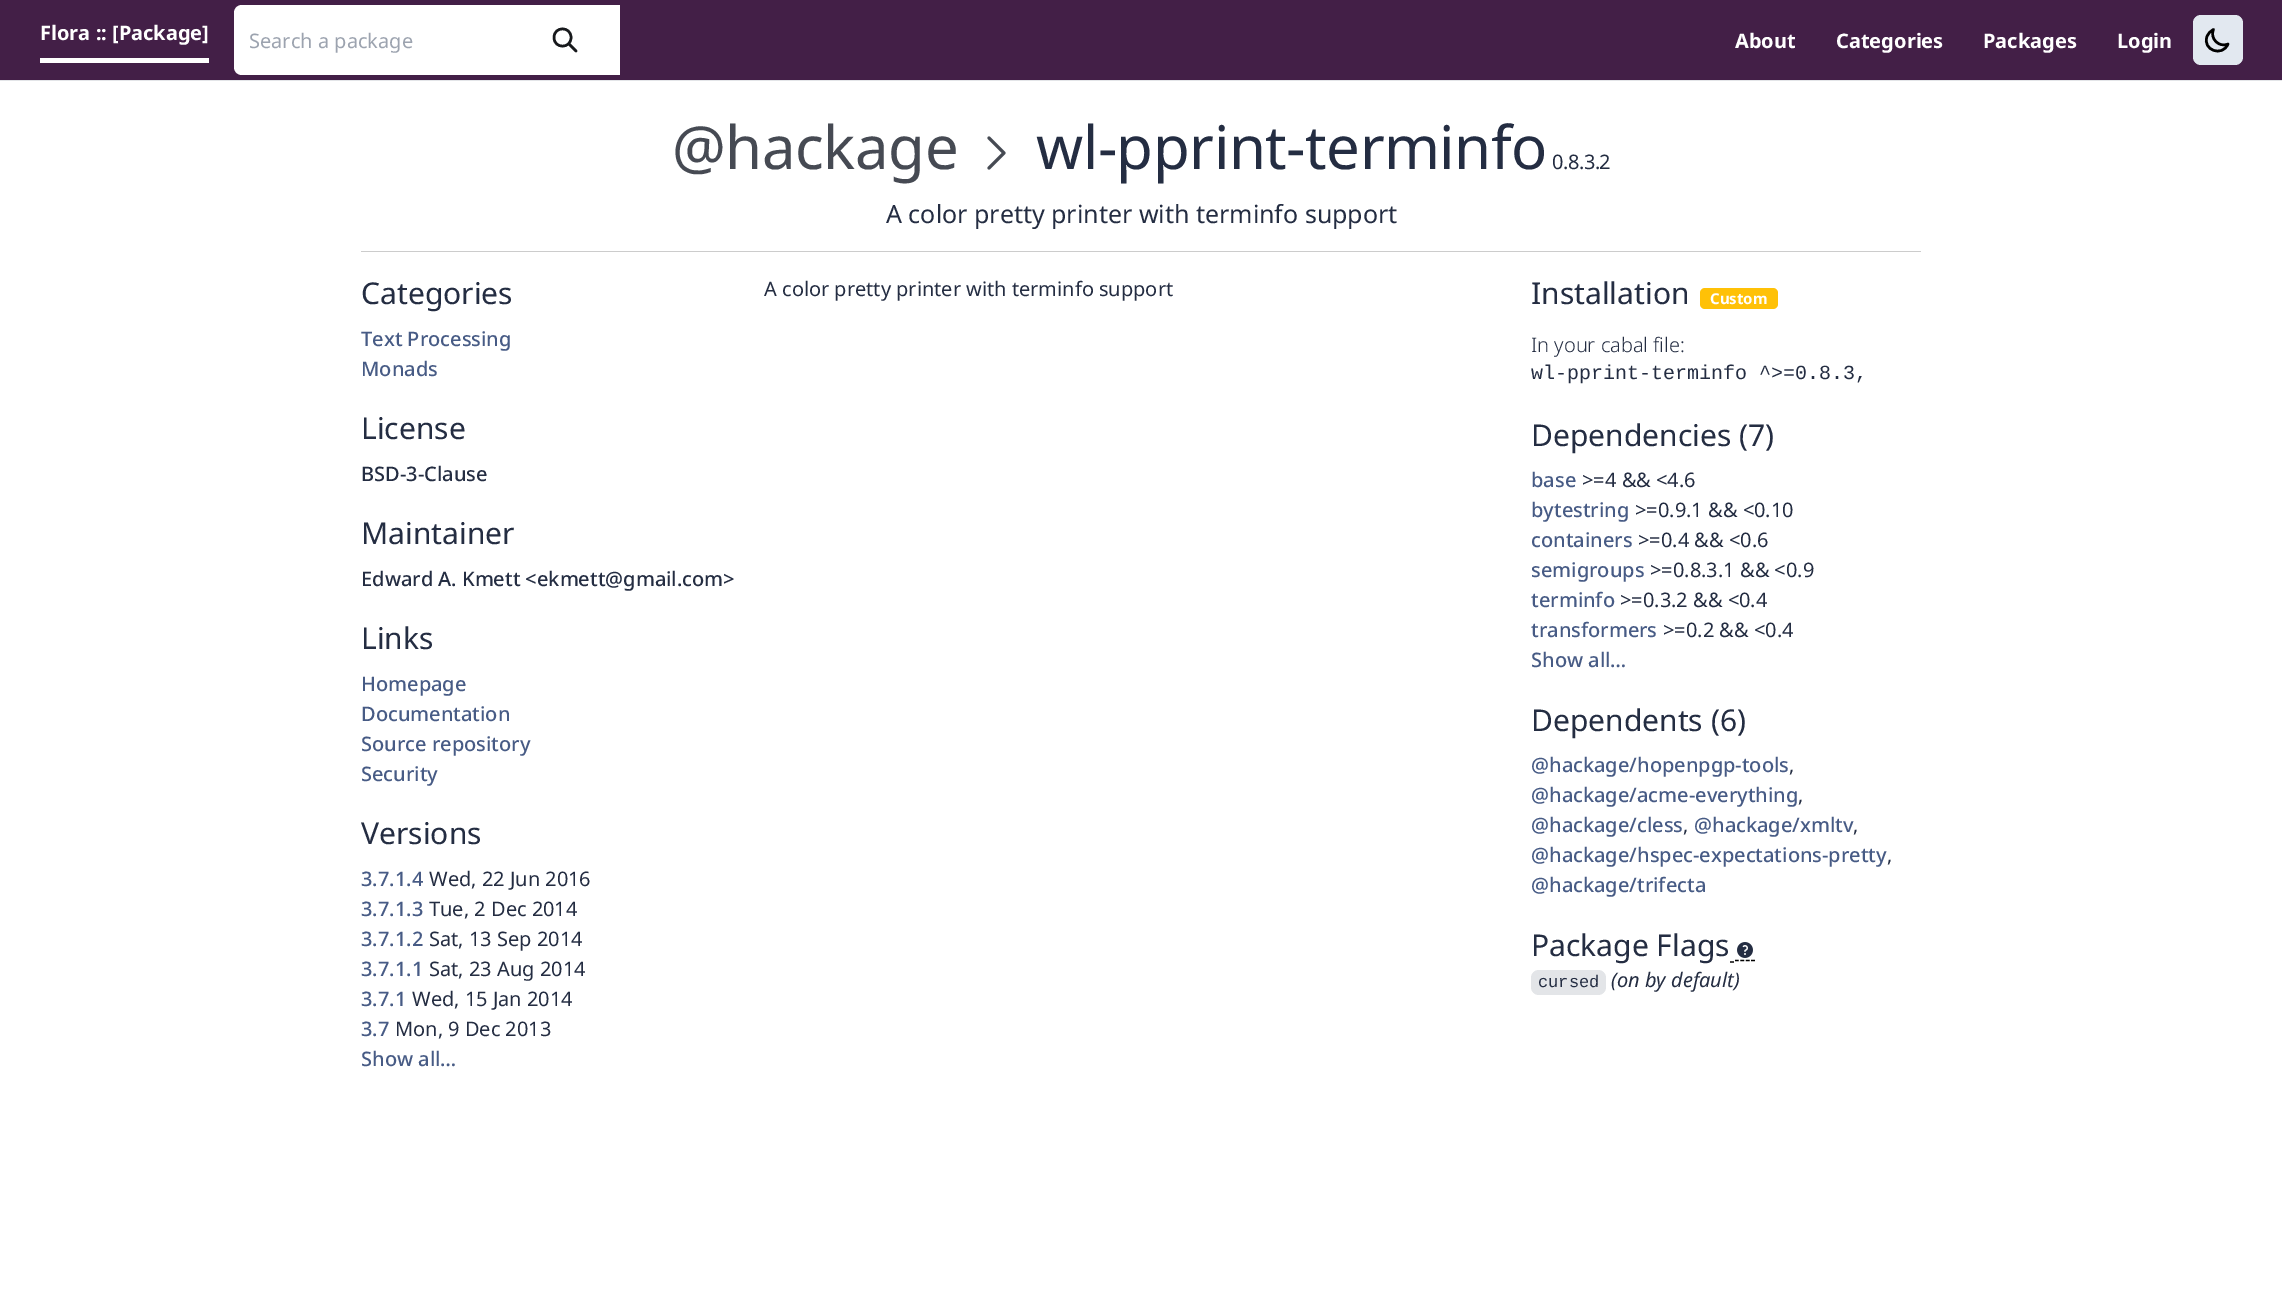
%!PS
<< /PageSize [2282 1289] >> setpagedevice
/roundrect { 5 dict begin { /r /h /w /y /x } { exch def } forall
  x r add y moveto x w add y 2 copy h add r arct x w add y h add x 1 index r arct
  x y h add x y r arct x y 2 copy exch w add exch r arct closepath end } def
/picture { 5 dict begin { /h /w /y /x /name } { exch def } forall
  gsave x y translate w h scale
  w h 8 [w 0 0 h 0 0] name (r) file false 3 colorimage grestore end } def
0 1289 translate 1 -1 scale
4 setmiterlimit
1 setgray
0 0 2282 1289 rectfill
0.263 0.122 0.278 setrgbcolor
0 0 2282 80 rectfill
0.89 0.898 0.91 setrgbcolor
0 80 2282 1 rectfill
1 setgray
40 58 169 5 rectfill
/NotoSans-Bold [20 0 0 -20 0 0] selectfont
40 40 moveto (Flora :: [Package]) show
newpath 242 5 moveto 620 5 lineto 620 75 lineto 242 75 lineto 237.5 75 234 71.5 234 67 curveto 234 13 lineto 234 8.5 237.5 5 242 5 curveto closepath fill
/NotoSans-Regular [20 0 0 -20 0 0] selectfont
0.612 0.639 0.686 setrgbcolor
249 48 moveto (Search a package) show
0.09 0.098 0.11 setrgbcolor
2.5 setlinewidth
1 setlinecap
1 setlinejoin
newpath 576 51 moveto 569 44 lineto 571 37.5 moveto 571 49 554 49 554 37.5 curveto 554 26 571 26 571 37.5 curveto closepath stroke
/NotoSans-Bold [20 0 0 -20 0 0] selectfont
1 setgray
1735 48 moveto (About) show
1836 48 moveto (Categories) show
1983 48 moveto (Packages) show
2117 48 moveto (Login) show
0.886 0.91 0.941 setrgbcolor
2193 15 50 50 8 roundrect fill
0 setgray
newpath 2228 44 moveto 2219 48 2209.5 38.5 2213.5 29.5 curveto 2210.5 31 2208 33.5 2207 36.5 curveto 2202 50 2222.5 57.5 2228 44 curveto closepath stroke
0.8 setgray
361 251 1560 1 rectfill
/NotoSans-Regular [60 0 0 -60 0 0] selectfont
0.275 0.29 0.325 setrgbcolor
672 169 moveto -0.5 0 (@hackage) ashow
0.141 0.176 0.259 setrgbcolor
1036 169 moveto -0.5 0 (wl-pprint-terminfo) ashow
0.275 0.29 0.325 setrgbcolor
3 setlinewidth
newpath 989 138 moveto 1004 153 lineto 989 168 lineto stroke
/NotoSans-Regular [20 0 0 -20 0 0] selectfont
0.141 0.176 0.259 setrgbcolor
1552 169 moveto -0.5 0 (0.8.3.2) ashow
/NotoSans-Regular [25 0 0 -25 0 0] selectfont
886 223 moveto (A color pretty printer with terminfo support) show
/NotoSans-Regular [30 0 0 -30 0 0] selectfont
361 304 moveto (Categories) show
/NotoSans-Medium [20 0 0 -20 0 0] selectfont
0.278 0.357 0.522 setrgbcolor
361 346 moveto (Text Processing) show
361 376 moveto (Monads) show
/NotoSans-Regular [30 0 0 -30 0 0] selectfont
0.141 0.176 0.259 setrgbcolor
361 439 moveto (License) show
/NotoSans-Medium [20 0 0 -20 0 0] selectfont
361 481 moveto (BSD-3-Clause) show
/NotoSans-Regular [30 0 0 -30 0 0] selectfont
361 544 moveto (Maintainer) show
/NotoSans-Medium [20 0 0 -20 0 0] selectfont
361 586 moveto (Edward A. Kmett <ekmett@gmail.com>) show
/NotoSans-Regular [30 0 0 -30 0 0] selectfont
361 649 moveto (Links) show
/NotoSans-Medium [20 0 0 -20 0 0] selectfont
0.278 0.357 0.522 setrgbcolor
361 691 moveto (Homepage) show
361 721 moveto (Documentation) show
361 751 moveto (Source repository) show
361 781 moveto (Security) show
/NotoSans-Regular [30 0 0 -30 0 0] selectfont
0.141 0.176 0.259 setrgbcolor
361 844 moveto (Versions) show
/NotoSans-Medium [20 0 0 -20 0 0] selectfont
0.278 0.357 0.522 setrgbcolor
361 886 moveto (3.7.1.4) show
/NotoSans-Regular [20 0 0 -20 0 0] selectfont
0.141 0.176 0.259 setrgbcolor
429 886 moveto (Wed, 22 Jun 2016) show
/NotoSans-Medium [20 0 0 -20 0 0] selectfont
0.278 0.357 0.522 setrgbcolor
361 916 moveto (3.7.1.3) show
/NotoSans-Regular [20 0 0 -20 0 0] selectfont
0.141 0.176 0.259 setrgbcolor
429 916 moveto (Tue, 2 Dec 2014) show
/NotoSans-Medium [20 0 0 -20 0 0] selectfont
0.278 0.357 0.522 setrgbcolor
361 946 moveto (3.7.1.2) show
/NotoSans-Regular [20 0 0 -20 0 0] selectfont
0.141 0.176 0.259 setrgbcolor
429 946 moveto (Sat, 13 Sep 2014) show
/NotoSans-Medium [20 0 0 -20 0 0] selectfont
0.278 0.357 0.522 setrgbcolor
361 976 moveto (3.7.1.1) show
/NotoSans-Regular [20 0 0 -20 0 0] selectfont
0.141 0.176 0.259 setrgbcolor
429 976 moveto (Sat, 23 Aug 2014) show
/NotoSans-Medium [20 0 0 -20 0 0] selectfont
0.278 0.357 0.522 setrgbcolor
361 1006 moveto (3.7.1) show
/NotoSans-Regular [20 0 0 -20 0 0] selectfont
0.141 0.176 0.259 setrgbcolor
412 1006 moveto (Wed, 15 Jan 2014) show
/NotoSans-Medium [20 0 0 -20 0 0] selectfont
0.278 0.357 0.522 setrgbcolor
361 1036 moveto (3.7) show
/NotoSans-Regular [20 0 0 -20 0 0] selectfont
0.141 0.176 0.259 setrgbcolor
395 1036 moveto (Mon, 9 Dec 2013) show
/NotoSans-Medium [20 0 0 -20 0 0] selectfont
0.278 0.357 0.522 setrgbcolor
361 1066 moveto (Show all…) show
/NotoSans-Regular [20 0 0 -20 0 0] selectfont
0.141 0.176 0.259 setrgbcolor
764 296 moveto (A color pretty printer with terminfo support) show
/NotoSans-Regular [30 0 0 -30 0 0] selectfont
1531 304 moveto (Installation) show
1 0.757 0.027 setrgbcolor
1700 288 78 21 5 roundrect fill
/NotoSans-Bold [15 0 0 -15 0 0] selectfont
1 setgray
1710 304 moveto (Custom) show
/NotoSans-Light [20 0 0 -20 0 0] selectfont
0.141 0.176 0.259 setrgbcolor
1531 352 moveto (In your cabal file:) show
/LiberationMono-Regular [20 0 0 -20 0 0] selectfont
1531 379 moveto (wl-pprint-terminfo ^>=0.8.3,) show
/NotoSans-Regular [30 0 0 -30 0 0] selectfont
1531 446 moveto (Dependencies \(7\)) show
/NotoSans-Medium [20 0 0 -20 0 0] selectfont
0.278 0.357 0.522 setrgbcolor
1531 487 moveto (base) show
/NotoSans-Regular [20 0 0 -20 0 0] selectfont
0.141 0.176 0.259 setrgbcolor
1582 487 moveto (>=4 && <4.6) show
/NotoSans-Medium [20 0 0 -20 0 0] selectfont
0.278 0.357 0.522 setrgbcolor
1531 517 moveto (bytestring) show
/NotoSans-Regular [20 0 0 -20 0 0] selectfont
0.141 0.176 0.259 setrgbcolor
1635 517 moveto (>=0.9.1 && <0.10) show
/NotoSans-Medium [20 0 0 -20 0 0] selectfont
0.278 0.357 0.522 setrgbcolor
1531 547 moveto (containers) show
/NotoSans-Regular [20 0 0 -20 0 0] selectfont
0.141 0.176 0.259 setrgbcolor
1638 547 moveto (>=0.4 && <0.6) show
/NotoSans-Medium [20 0 0 -20 0 0] selectfont
0.278 0.357 0.522 setrgbcolor
1531 577 moveto (semigroups) show
/NotoSans-Regular [20 0 0 -20 0 0] selectfont
0.141 0.176 0.259 setrgbcolor
1650 577 moveto (>=0.8.3.1 && <0.9) show
/NotoSans-Medium [20 0 0 -20 0 0] selectfont
0.278 0.357 0.522 setrgbcolor
1531 607 moveto (terminfo) show
/NotoSans-Regular [20 0 0 -20 0 0] selectfont
0.141 0.176 0.259 setrgbcolor
1620 607 moveto (>=0.3.2 && <0.4) show
/NotoSans-Medium [20 0 0 -20 0 0] selectfont
0.278 0.357 0.522 setrgbcolor
1531 637 moveto (transformers) show
/NotoSans-Regular [20 0 0 -20 0 0] selectfont
0.141 0.176 0.259 setrgbcolor
1663 637 moveto (>=0.2 && <0.4) show
/NotoSans-Medium [20 0 0 -20 0 0] selectfont
0.278 0.357 0.522 setrgbcolor
1531 667 moveto (Show all…) show
/NotoSans-Regular [30 0 0 -30 0 0] selectfont
0.141 0.176 0.259 setrgbcolor
1531 731 moveto (Dependents \(6\)) show
/NotoSans-Medium [20 0 0 -20 0 0] selectfont
0.278 0.357 0.522 setrgbcolor
1531 772 moveto (@hackage/hopenpgp-tools) show
/NotoSans-Regular [20 0 0 -20 0 0] selectfont
0.141 0.176 0.259 setrgbcolor
1789 772 moveto (,) show
/NotoSans-Medium [20 0 0 -20 0 0] selectfont
0.278 0.357 0.522 setrgbcolor
1531 802 moveto (@hackage/acme-everything) show
/NotoSans-Regular [20 0 0 -20 0 0] selectfont
0.141 0.176 0.259 setrgbcolor
1798 802 moveto (,) show
/NotoSans-Medium [20 0 0 -20 0 0] selectfont
0.278 0.357 0.522 setrgbcolor
1531 832 moveto (@hackage/cless) show
/NotoSans-Regular [20 0 0 -20 0 0] selectfont
0.141 0.176 0.259 setrgbcolor
1683 832 moveto (,) show
/NotoSans-Medium [20 0 0 -20 0 0] selectfont
0.278 0.357 0.522 setrgbcolor
1694 832 moveto (@hackage/xmltv) show
/NotoSans-Regular [20 0 0 -20 0 0] selectfont
0.141 0.176 0.259 setrgbcolor
1853 832 moveto (,) show
/NotoSans-Medium [20 0 0 -20 0 0] selectfont
0.278 0.357 0.522 setrgbcolor
1531 862 moveto (@hackage/hspec-expectations-pretty) show
/NotoSans-Regular [20 0 0 -20 0 0] selectfont
0.141 0.176 0.259 setrgbcolor
1887 862 moveto (,) show
/NotoSans-Medium [20 0 0 -20 0 0] selectfont
0.278 0.357 0.522 setrgbcolor
1531 892 moveto (@hackage/trifecta) show
/NotoSans-Regular [30 0 0 -30 0 0] selectfont
0.141 0.176 0.259 setrgbcolor
1531 956 moveto (Package Flags) show
(img1.rgb) 1737 942 16 16 picture
0 setgray
1.2 setlinewidth
0 setlinecap
0 setlinejoin
newpath 1730 962 moveto 1734 962 lineto stroke
[3.75 1.66] 0 setdash
newpath 1735 960.5 moveto 1755 960.5 lineto stroke
0.89 0.898 0.91 setrgbcolor
1531 970 75 25 8 roundrect fill
/LiberationMono-Regular [17 0 0 -17 0 0] selectfont
0.141 0.176 0.259 setrgbcolor
1538 987 moveto (cursed) show
/NotoSans-Italic [20 0 0 -20 0 0] selectfont
1611 987 moveto (\(on by default\)) show
showpage
